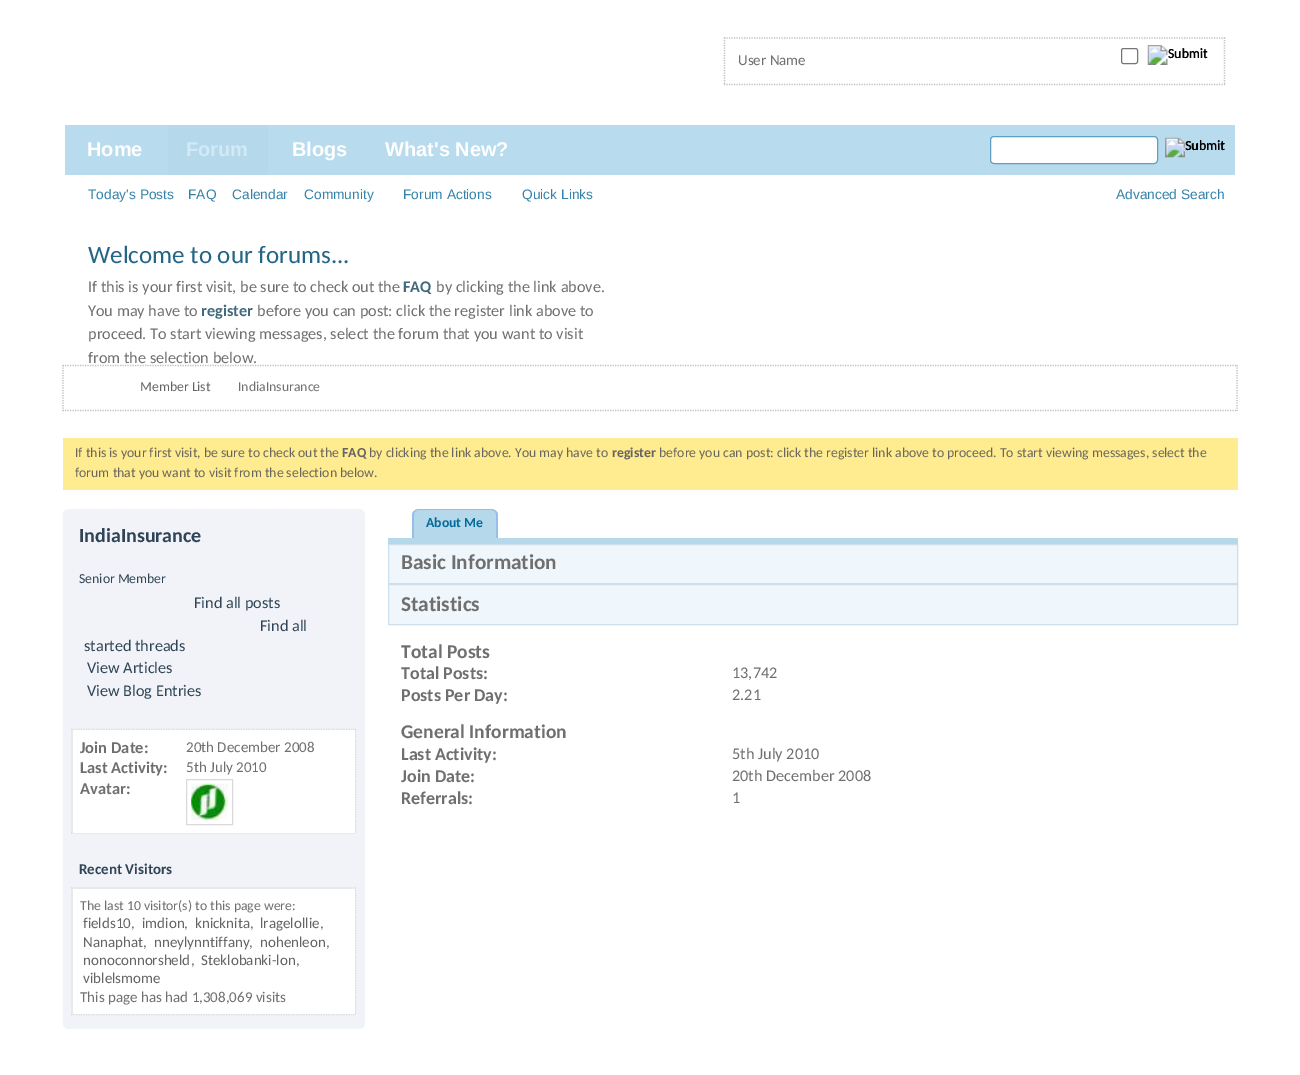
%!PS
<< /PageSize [1300 1075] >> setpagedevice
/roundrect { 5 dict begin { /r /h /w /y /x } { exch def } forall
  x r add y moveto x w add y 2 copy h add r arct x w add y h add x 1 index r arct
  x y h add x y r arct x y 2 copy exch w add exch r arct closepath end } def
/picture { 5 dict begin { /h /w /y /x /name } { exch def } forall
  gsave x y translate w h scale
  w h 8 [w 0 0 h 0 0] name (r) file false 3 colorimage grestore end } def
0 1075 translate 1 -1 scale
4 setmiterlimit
1 setgray
0 0 1300 1075 rectfill
0.749 0.757 0.761 setrgbcolor
1.2 setlinewidth
[1.25 1.25] 0 setdash
newpath 724 38 moveto 1225 38 lineto stroke
newpath 1224.5 37.5 moveto 1224.5 85 lineto stroke
newpath 724 84.5 moveto 1225 84.5 lineto stroke
newpath 724.5 37.5 moveto 724.5 85 lineto stroke
0.463 setgray
1 setlinewidth
[] 0 setdash
1121.5 48.5 16 15 2 roundrect stroke
(img1.rgb) 1147 45 61 20 picture
/Carlito-Regular [13.75 0 0 -13.75 0 0] selectfont
0 setgray
1168 58 moveto (Submit) show
/Carlito-Regular [15 0 0 -15 0 0] selectfont
0.435 setgray
738 65 moveto (User Name) show
0.722 0.859 0.933 setrgbcolor
65 125 1170 50 rectfill
/LiberationSans-Bold [20 0 0 -20 0 0] selectfont
1 setgray
292 156 moveto (Blogs) show
385 156 moveto (What's New?) show
0.71 0.847 0.922 setrgbcolor
168 125 100 50 rectfill
0.82 0.918 0.965 setrgbcolor
186 156 moveto (Forum) show
/LiberationSans-Regular [13.75 0 0 -13.75 0 0] selectfont
0.208 0.51 0.663 setrgbcolor
88 199 moveto (Today's Posts) show
188 199 moveto (FAQ) show
232 199 moveto (Calendar) show
304 199 moveto (Community) show
403 199 moveto (Forum Actions) show
522 199 moveto (Quick Links) show
/LiberationSans-Bold [20 0 0 -20 0 0] selectfont
1 setgray
87 156 moveto (Home) show
990.5 136.5 167 27 3.5 roundrect gsave fill grestore
0.365 0.627 0.765 setrgbcolor
stroke
(img2.rgb) 1165 137 60 21 picture
/Carlito-Regular [13.75 0 0 -13.75 0 0] selectfont
0 setgray
1185 150 moveto (Submit) show
/LiberationSans-Regular [13.75 0 0 -13.75 0 0] selectfont
0.208 0.51 0.663 setrgbcolor
1116 199 moveto (Advanced Search) show
/Carlito-Regular [25 0 0 -25 0 0] selectfont
0.141 0.396 0.525 setrgbcolor
88 263 moveto (Welcome to our forums...) show
/Carlito-Regular [16.25 0 0 -16.25 0 0] selectfont
0.435 setgray
88 292 moveto (If this is your first visit, be sure to check out the) show
/Carlito-Bold [16.25 0 0 -16.25 0 0] selectfont
0.263 0.412 0.49 setrgbcolor
403 292 moveto (FAQ) show
/Carlito-Regular [16.25 0 0 -16.25 0 0] selectfont
0.435 setgray
436 292 moveto (by clicking the link above.) show
88 316 moveto (You may have to) show
/Carlito-Bold [16.25 0 0 -16.25 0 0] selectfont
0.263 0.412 0.49 setrgbcolor
201 316 moveto (register) show
/Carlito-Regular [16.25 0 0 -16.25 0 0] selectfont
0.435 setgray
257 316 moveto (before you can post: click the register link above to) show
88 339 moveto (proceed. To start viewing messages, select the forum that you want to visit) show
88 363 moveto (from the selection below.) show
0.749 0.757 0.761 setrgbcolor
1.2 setlinewidth
[1.25 1.25] 0 setdash
newpath 62.5 365.5 moveto 1237.5 365.5 lineto stroke
newpath 1237 365 moveto 1237 411 lineto stroke
newpath 62.5 410.5 moveto 1237.5 410.5 lineto stroke
newpath 63 365 moveto 63 411 lineto stroke
/Carlito-Regular [13.75 0 0 -13.75 0 0] selectfont
0.392 setgray
140 391 moveto (Member List) show
0.435 setgray
238 391 moveto (IndiaInsurance) show
1 0.922 0.565 setrgbcolor
63 438 1175 52 rectfill
0.412 0.404 0.365 setrgbcolor
75 457 moveto (If this is your first visit, be sure to check out the) show
/Carlito-Bold [13.75 0 0 -13.75 0 0] selectfont
0.392 setgray
342 457 moveto (FAQ) show
/Carlito-Regular [13.75 0 0 -13.75 0 0] selectfont
0.412 0.404 0.365 setrgbcolor
369 457 moveto (by clicking the link above. You may have to) show
/Carlito-Bold [13.75 0 0 -13.75 0 0] selectfont
0.392 setgray
612 457 moveto (register) show
/Carlito-Regular [13.75 0 0 -13.75 0 0] selectfont
0.412 0.404 0.365 setrgbcolor
659 457 moveto (before you can post: click the register link above to proceed. To start viewing messages, select the) show
75 477 moveto (forum that you want to visit from the selection below.) show
0.945 0.953 0.973 setrgbcolor
63 509 302 520 6 roundrect fill
0.941 0.969 0.988 setrgbcolor
newpath 69 509.5 moveto 359 509.5 lineto 362 509.5 364.5 512 364.5 515 curveto 364.5 1022.5 lineto 364.5 1025.5 362 1028 359 1028 curveto 69 1028 lineto 65.5 1028 63 1025.5 63 1022.5 curveto 63 515 lineto 63 512 65.5 509.5 69 509.5 curveto closepath stroke
/Carlito-Bold [20 0 0 -20 0 0] selectfont
0.184 0.267 0.337 setrgbcolor
79 542 moveto (IndiaInsurance) show
/Carlito-Regular [13.75 0 0 -13.75 0 0] selectfont
79 583 moveto (Senior Member) show
/Carlito-Regular [16.25 0 0 -16.25 0 0] selectfont
194 608 moveto (Find all posts) show
260 631 moveto (Find all) show
84 651 moveto (started threads) show
87 673 moveto (View Articles) show
87 696 moveto (View Blog Entries) show
0.855 setgray
newpath 71 729.5 moveto 356 729.5 lineto stroke
newpath 355.5 729 moveto 355.5 834 lineto stroke
newpath 71 833 moveto 356 833 lineto stroke
newpath 72 729 moveto 72 834 lineto stroke
1 setgray
73 730 282 103 rectfill
/Carlito-Bold [16.5 0 0 -16.5 0 0] selectfont
0.435 setgray
80 753 moveto (Join Date:) show
/Carlito-Regular [15 0 0 -15 0 0] selectfont
186 752 moveto (20th December 2008) show
/Carlito-Bold [16.5 0 0 -16.5 0 0] selectfont
80 773 moveto (Last Activity:) show
/Carlito-Regular [15 0 0 -15 0 0] selectfont
186 772 moveto (5th July 2010) show
/Carlito-Bold [16.5 0 0 -16.5 0 0] selectfont
80 794 moveto (Avatar:) show
0.855 setgray
1 setlinewidth
[] 0 setdash
186.5 779.5 46 45 rectstroke
(img3.rgb) 191 783 37 37 picture
/Carlito-Bold [15 0 0 -15 0 0] selectfont
0.184 0.267 0.337 setrgbcolor
79 874 moveto (Recent Visitors) show
0.855 setgray
1.2 setlinewidth
[1.25 1.25] 0 setdash
newpath 71 888 moveto 356 888 lineto stroke
newpath 355.5 887.5 moveto 355.5 1015 lineto stroke
newpath 71 1014.5 moveto 356 1014.5 lineto stroke
newpath 72 887.5 moveto 72 1015 lineto stroke
1 setgray
73 889 282 125 rectfill
/Carlito-Regular [13.75 0 0 -13.75 0 0] selectfont
0.435 setgray
80 910 moveto (The last 10 visitor\(s\) to this page were:) show
/Carlito-Regular [15 0 0 -15 0 0] selectfont
0.392 setgray
83 928 moveto (fields10) show
0.435 setgray
131 928 moveto (,) show
0.392 setgray
142 928 moveto (imdion) show
0.435 setgray
184 928 moveto (,) show
0.392 setgray
195 928 moveto (knicknita) show
0.435 setgray
250 928 moveto (,) show
0.392 setgray
260 928 moveto (lragelollie) show
0.435 setgray
320 928 moveto (,) show
0.392 setgray
83 947 moveto (Nanaphat) show
0.435 setgray
143 947 moveto (,) show
0.392 setgray
154 947 moveto (nneylynntiffany) show
0.435 setgray
249 947 moveto (,) show
0.392 setgray
260 947 moveto (nohenleon) show
0.435 setgray
326 947 moveto (,) show
0.392 setgray
83 965 moveto (nonoconnorsheld) show
0.435 setgray
191 965 moveto (,) show
0.392 setgray
201 965 moveto (Steklobanki-lon) show
0.435 setgray
296 965 moveto (,) show
0.392 setgray
83 983 moveto (viblelsmome) show
0.435 setgray
80 1002 moveto (This page has had 1,308,069 visits) show
0.71 0.847 0.922 setrgbcolor
newpath 419 510 moveto 491 510 lineto 494 510 496 512 496 515 curveto 496 538 lineto 414 538 lineto 414 515 lineto 414 512 416 510 419 510 curveto closepath fill
0.584 0.749 0.902 setrgbcolor
newpath 419 509 moveto 491 509 lineto 495 509 498 512 498 515 curveto 498 538 lineto 412 538 lineto 412 515 lineto 412 512 415 509 419 509 curveto closepath 419 510 moveto 491 510 lineto 494 510 496 512 496 515 curveto 496 538 lineto 414 538 lineto 414 515 lineto 414 512 416 510 419 510 curveto closepath eofill
/Carlito-Bold [13.75 0 0 -13.75 0 0] selectfont
0.012 0.424 0.608 setrgbcolor
426 527 moveto (About Me) show
0.71 0.847 0.922 setrgbcolor
388 538 850 6 rectfill
0.941 0.969 0.988 setrgbcolor
newpath 388.5 544.5 moveto 1237.5 544.5 lineto 1237.5 583.5 lineto 388.5 583.5 lineto closepath gsave fill grestore
0.808 0.875 0.922 setrgbcolor
1 setlinewidth
[] 0 setdash
stroke
/Carlito-Bold [21.25 0 0 -21.25 0 0] selectfont
0.435 setgray
401 569 moveto (Basic Information) show
0.941 0.969 0.988 setrgbcolor
newpath 388.5 584.5 moveto 1237.5 584.5 lineto 1237.5 624.5 lineto 388.5 624.5 lineto closepath gsave fill grestore
0.808 0.875 0.922 setrgbcolor
stroke
0.435 setgray
401 611 moveto (Statistics) show
/Carlito-Bold [19.5 0 0 -19.5 0 0] selectfont
401 658 moveto (Total Posts) show
/Carlito-Bold [18 0 0 -18 0 0] selectfont
401 679 moveto (Total Posts:) show
/Carlito-Regular [16.25 0 0 -16.25 0 0] selectfont
732 678 moveto (13,742) show
/Carlito-Bold [18 0 0 -18 0 0] selectfont
401 701 moveto (Posts Per Day:) show
/Carlito-Regular [16.25 0 0 -16.25 0 0] selectfont
732 700 moveto (2.21) show
/Carlito-Bold [19.5 0 0 -19.5 0 0] selectfont
401 738 moveto (General Information) show
/Carlito-Bold [18 0 0 -18 0 0] selectfont
401 760 moveto (Last Activity:) show
/Carlito-Regular [16.25 0 0 -16.25 0 0] selectfont
732 759 moveto (5th July 2010) show
/Carlito-Bold [18 0 0 -18 0 0] selectfont
401 782 moveto (Join Date:) show
/Carlito-Regular [16.25 0 0 -16.25 0 0] selectfont
732 781 moveto (20th December 2008) show
/Carlito-Bold [18 0 0 -18 0 0] selectfont
401 804 moveto (Referrals:) show
/Carlito-Regular [16.25 0 0 -16.25 0 0] selectfont
732 803 moveto (1) show
showpage
